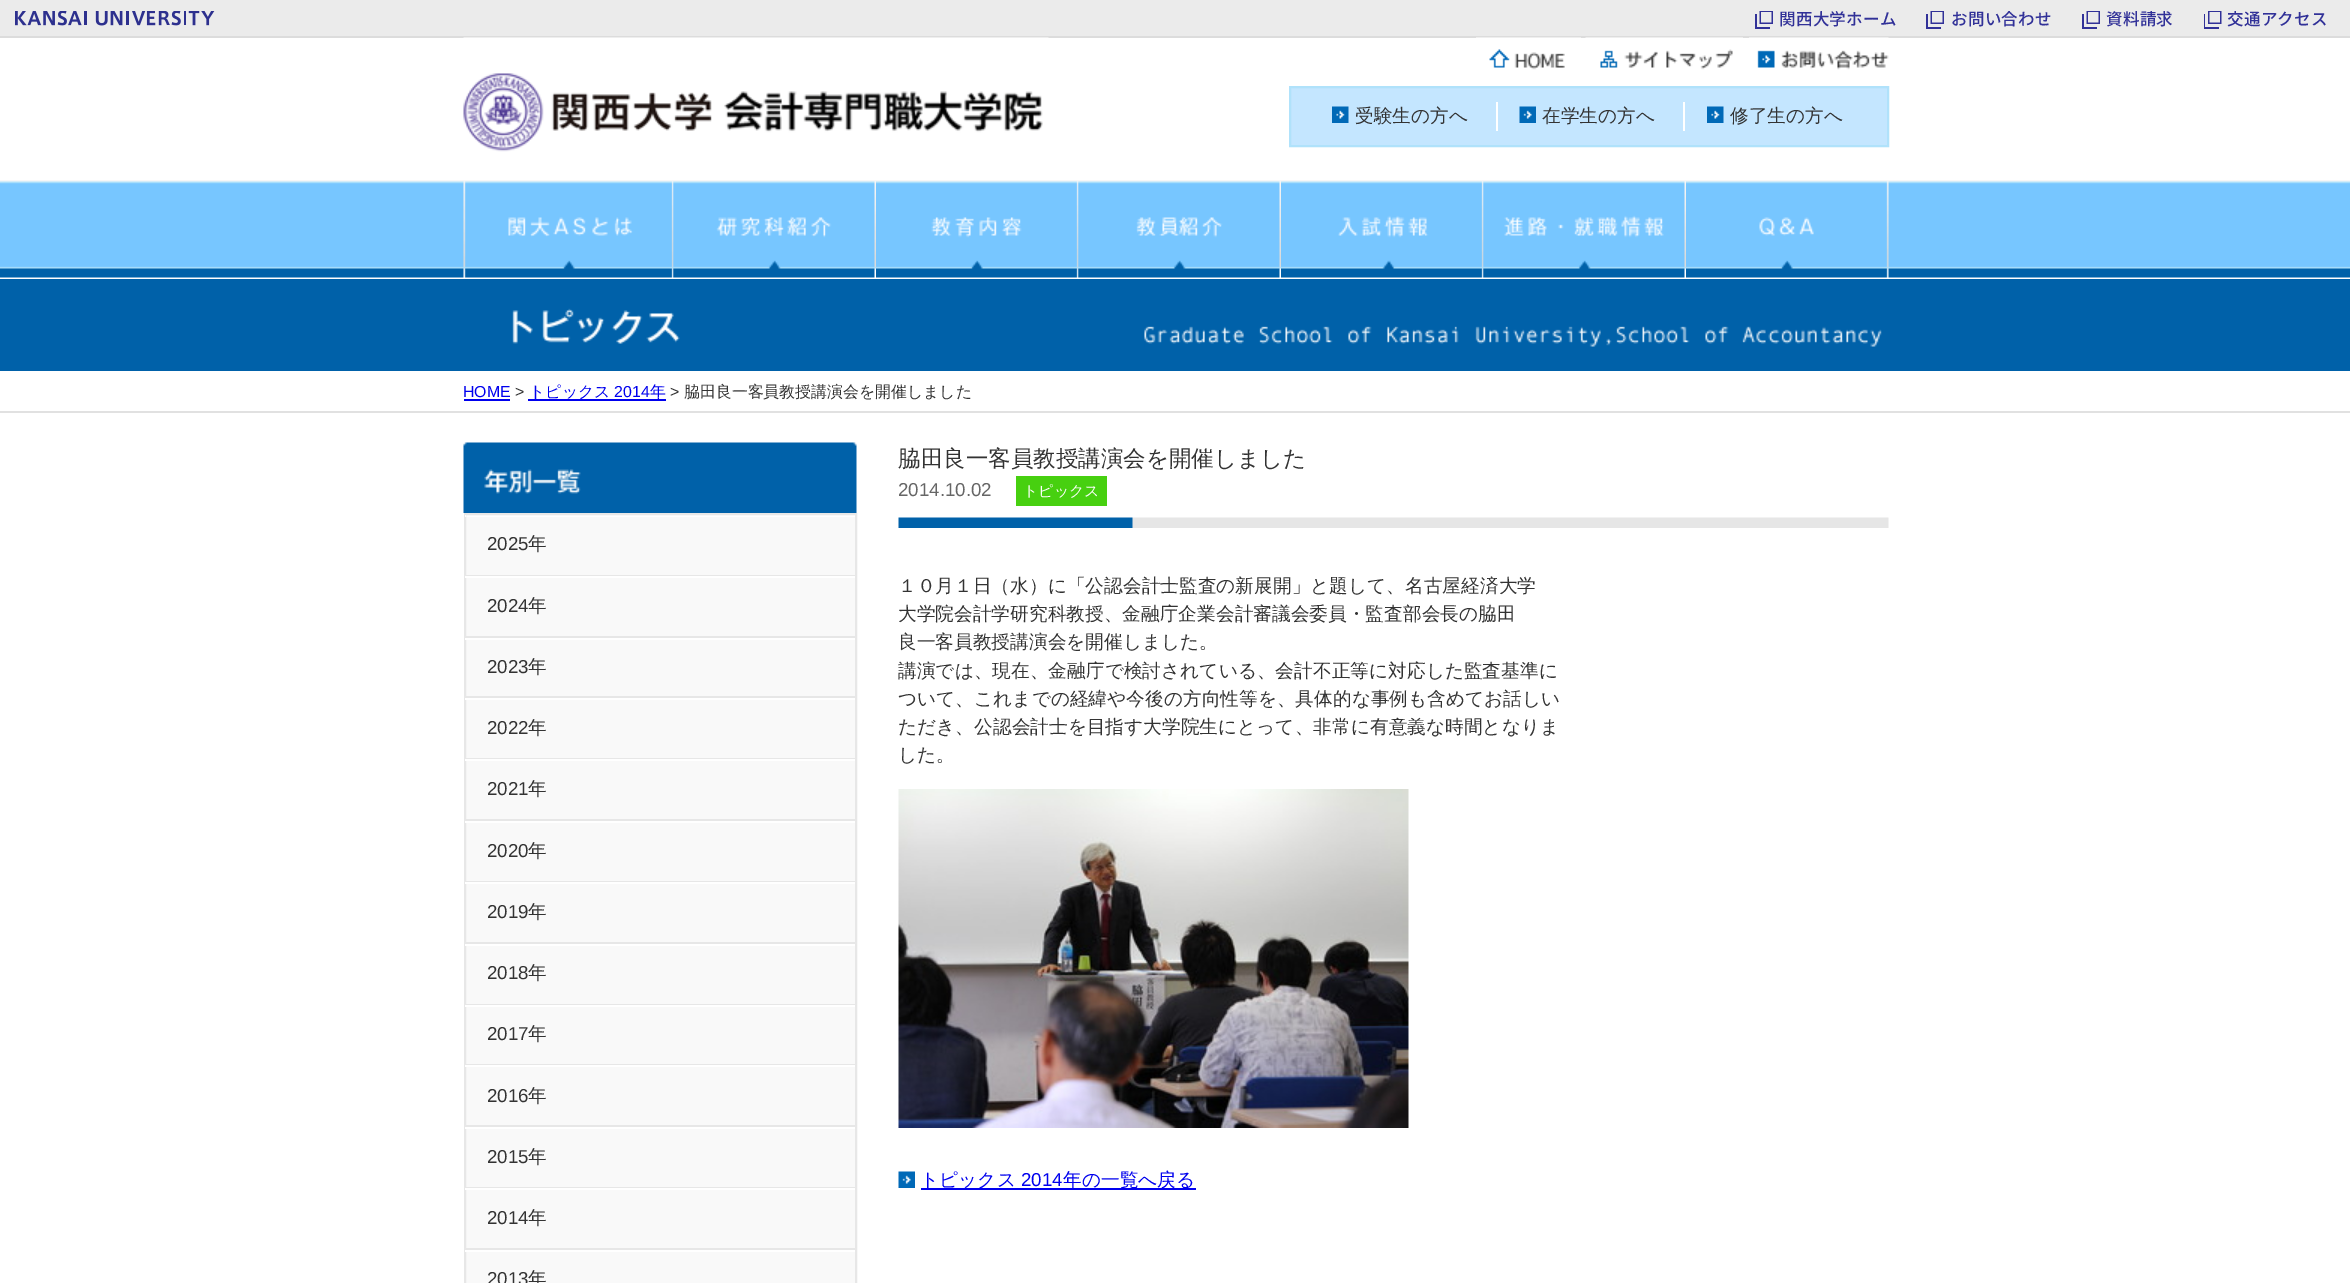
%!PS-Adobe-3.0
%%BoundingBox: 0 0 2350 1283
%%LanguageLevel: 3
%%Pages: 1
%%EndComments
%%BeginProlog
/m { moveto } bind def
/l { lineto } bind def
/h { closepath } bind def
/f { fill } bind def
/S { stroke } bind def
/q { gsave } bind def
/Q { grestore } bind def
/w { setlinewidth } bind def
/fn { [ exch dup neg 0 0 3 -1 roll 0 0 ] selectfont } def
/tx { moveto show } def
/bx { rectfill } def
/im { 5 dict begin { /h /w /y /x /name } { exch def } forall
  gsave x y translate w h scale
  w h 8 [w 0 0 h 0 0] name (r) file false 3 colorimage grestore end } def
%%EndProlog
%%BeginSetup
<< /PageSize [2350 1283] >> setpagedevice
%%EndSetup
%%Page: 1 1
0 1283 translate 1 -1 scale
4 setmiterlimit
1 setgray
0 0 2350 1283 bx
0.922 setgray
0 0 2350 36 bx
0.863 setgray
0 36 2350 2 bx
(image0.raw) 15 11 200 15 im
(image1.raw) 1755 11 18 18 im
/NotoSansJP-Thin 16.5 fn
0.192 0.192 0.596 setrgbcolor
1779 25 m 0.25 0 (関西大学ホーム) ashow
(image1.raw) 1926 11 18 18 im
1951 25 m 0.25 0 (お問い合わせ) ashow
(image1.raw) 2082 11 18 18 im
2106 25 m 0.25 0 (資料請求) ashow
(image2.raw) 2204 11 18 18 im
2227 25 m 0.25 0 (交通アクセス) ashow
(image3.raw) 0 180 2350 98 im
(image4.raw) 463 37 586 115 im
(image5.raw) 1476 37 105 33 im
(image6.raw) 1585 37 158 33 im
(image7.raw) 1749 37 140 33 im
0.769 0.902 1 setrgbcolor
1290 87 m 1888 87 l 1888 146 l 1290 146 l h q f Q
0.69 0.886 0.984 setrgbcolor
2 w
S
(image8.raw) 1332 106 17 17 im
/WenQuanYiZenHei-Medium 18.7 fn
0.2 setgray
(受験生の方へ) 1355 122 tx
1 setgray
1496 102 2 29 bx
(image9.raw) 1519 106 17 17 im
0.2 setgray
(在学生の方へ) 1542 122 tx
1 setgray
1683 102 2 29 bx
(image10.raw) 1707 106 17 17 im
0.2 setgray
(修了生の方へ) 1730 122 tx
(image11.raw) 463 181 211 97 im
(image12.raw) 673 181 203 97 im
(image13.raw) 931 181 148 97 im
(image14.raw) 1078 181 203 97 im
(image15.raw) 1338 181 146 97 im
(image16.raw) 1483 181 203 97 im
(image17.raw) 1759 181 130 97 im
0 0.38 0.663 setrgbcolor
0 279 2350 92 bx
(image18.raw) 1144 326 738 21 im
(image19.raw) 512 308 168 36 im
0.882 setgray
0 411 2350 2 bx
/LiberationSans-Regular 15.9 fn
0 0 0.933 setrgbcolor
(HOME) 463 397 tx
464 399 46 2 bx
0.2 setgray
(>) 515 397 tx
0 0 0.933 setrgbcolor
528 399 138 2 bx
/WenQuanYiZenHei-Medium 15.9 fn
(トピックス) 529 397 tx
/LiberationSans-Regular 15.9 fn
(2014) 614 397 tx
/WenQuanYiZenHei-Medium 15.9 fn
(年) 650 397 tx
/LiberationSans-Regular 15.9 fn
0.2 setgray
(>) 670 397 tx
/WenQuanYiZenHei-Medium 15.9 fn
(脇田良一客員教授講演会を開催しました) 684 397 tx
(image20.raw) 463 442 394 71 im
0.976 setgray
466 517 389 766 bx
0.906 setgray
465 514 391 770 rectstroke
1 setgray
465 515 1 2 bx
0.906 setgray
465 575 390 1 bx
/LiberationSans-Regular 18.7 fn
0.2 setgray
(2025) 487 550 tx
/WenQuanYiZenHei-Medium 18.7 fn
(年) 528 550 tx
1 setgray
465 576 390 2 bx
0.906 setgray
465 636 390 2 bx
/LiberationSans-Regular 18.7 fn
0.2 setgray
(2024) 487 612 tx
/WenQuanYiZenHei-Medium 18.7 fn
(年) 528 612 tx
1 setgray
465 638 390 2 bx
0.906 setgray
465 696 390 2 bx
/LiberationSans-Regular 18.7 fn
0.2 setgray
(2023) 487 673 tx
/WenQuanYiZenHei-Medium 18.7 fn
(年) 528 673 tx
1 setgray
465 698 390 2 bx
0.906 setgray
465 758 390 1 bx
/LiberationSans-Regular 18.7 fn
0.2 setgray
(2022) 487 734 tx
/WenQuanYiZenHei-Medium 18.7 fn
(年) 528 734 tx
1 setgray
465 759 390 2 bx
0.906 setgray
465 819 390 2 bx
/LiberationSans-Regular 18.7 fn
0.2 setgray
(2021) 487 795 tx
/WenQuanYiZenHei-Medium 18.7 fn
(年) 528 795 tx
1 setgray
465 821 390 2 bx
0.906 setgray
465 881 390 1 bx
/LiberationSans-Regular 18.7 fn
0.2 setgray
(2020) 487 857 tx
/WenQuanYiZenHei-Medium 18.7 fn
(年) 528 857 tx
1 setgray
465 882 390 2 bx
0.906 setgray
465 942 390 2 bx
/LiberationSans-Regular 18.7 fn
0.2 setgray
(2019) 487 918 tx
/WenQuanYiZenHei-Medium 18.7 fn
(年) 528 918 tx
1 setgray
465 944 390 2 bx
0.906 setgray
465 1004 390 1 bx
/LiberationSans-Regular 18.7 fn
0.2 setgray
(2018) 487 979 tx
/WenQuanYiZenHei-Medium 18.7 fn
(年) 528 979 tx
1 setgray
465 1005 390 2 bx
0.906 setgray
465 1064 390 1 bx
/LiberationSans-Regular 18.7 fn
0.2 setgray
(2017) 487 1040 tx
/WenQuanYiZenHei-Medium 18.7 fn
(年) 528 1040 tx
1 setgray
465 1065 390 2 bx
0.906 setgray
465 1125 390 2 bx
/LiberationSans-Regular 18.7 fn
0.2 setgray
(2016) 487 1102 tx
/WenQuanYiZenHei-Medium 18.7 fn
(年) 528 1102 tx
1 setgray
465 1127 390 2 bx
0.906 setgray
465 1187 390 1 bx
/LiberationSans-Regular 18.7 fn
0.2 setgray
(2015) 487 1163 tx
/WenQuanYiZenHei-Medium 18.7 fn
(年) 528 1163 tx
1 setgray
465 1188 390 2 bx
0.906 setgray
465 1248 390 2 bx
/LiberationSans-Regular 18.7 fn
0.2 setgray
(2014) 487 1224 tx
/WenQuanYiZenHei-Medium 18.7 fn
(年) 528 1224 tx
1 setgray
465 1250 390 2 bx
/LiberationSans-Regular 18.7 fn
0.2 setgray
(2013) 487 1285 tx
/WenQuanYiZenHei-Medium 18.7 fn
(年) 528 1285 tx
(image21.raw) 898 517 991 11 im
/WenQuanYiZenHei-Medium 22.5 fn
(脇田良一客員教授講演会を開催しました) 898 466 tx
/LiberationSans-Regular 18.7 fn
0.4 setgray
(2014.10.02) 898 496 tx
0.278 0.816 0.063 setrgbcolor
1016 476 91 30 bx
/WenQuanYiZenHei-Medium 15 fn
1 setgray
(トピックス) 1023 496 tx
/WenQuanYiZenHei-Medium 18.7 fn
0.2 setgray
(１０月１日（水）に「公認会計士監査の新展開」と題して、名古屋経済大学) 898 592 tx
(大学院会計学研究科教授、金融庁企業会計審議会委員・監査部会長の脇田) 898 620 tx
(良一客員教授講演会を開催しました。) 898 648 tx
(講演では、現在、金融庁で検討されている、会計不正等に対応した監査基準に) 898 677 tx
(ついて、これまでの経緯や今後の方向性等を、具体的な事例も含めてお話しい) 898 705 tx
(ただき、公認会計士を目指す大学院生にとって、非常に有意義な時間となりま) 898 733 tx
(した。) 898 761 tx
(image22.raw) 898 789 511 339 im
(image23.raw) 898 1171 17 17 im
0 0 0.933 setrgbcolor
921 1188 275 2 bx
(トピックス) 920 1186 tx
/LiberationSans-Regular 18.7 fn
(2014) 1021 1186 tx
/WenQuanYiZenHei-Medium 18.7 fn
(年の一覧へ戻る) 1063 1186 tx
showpage
%%EOF
